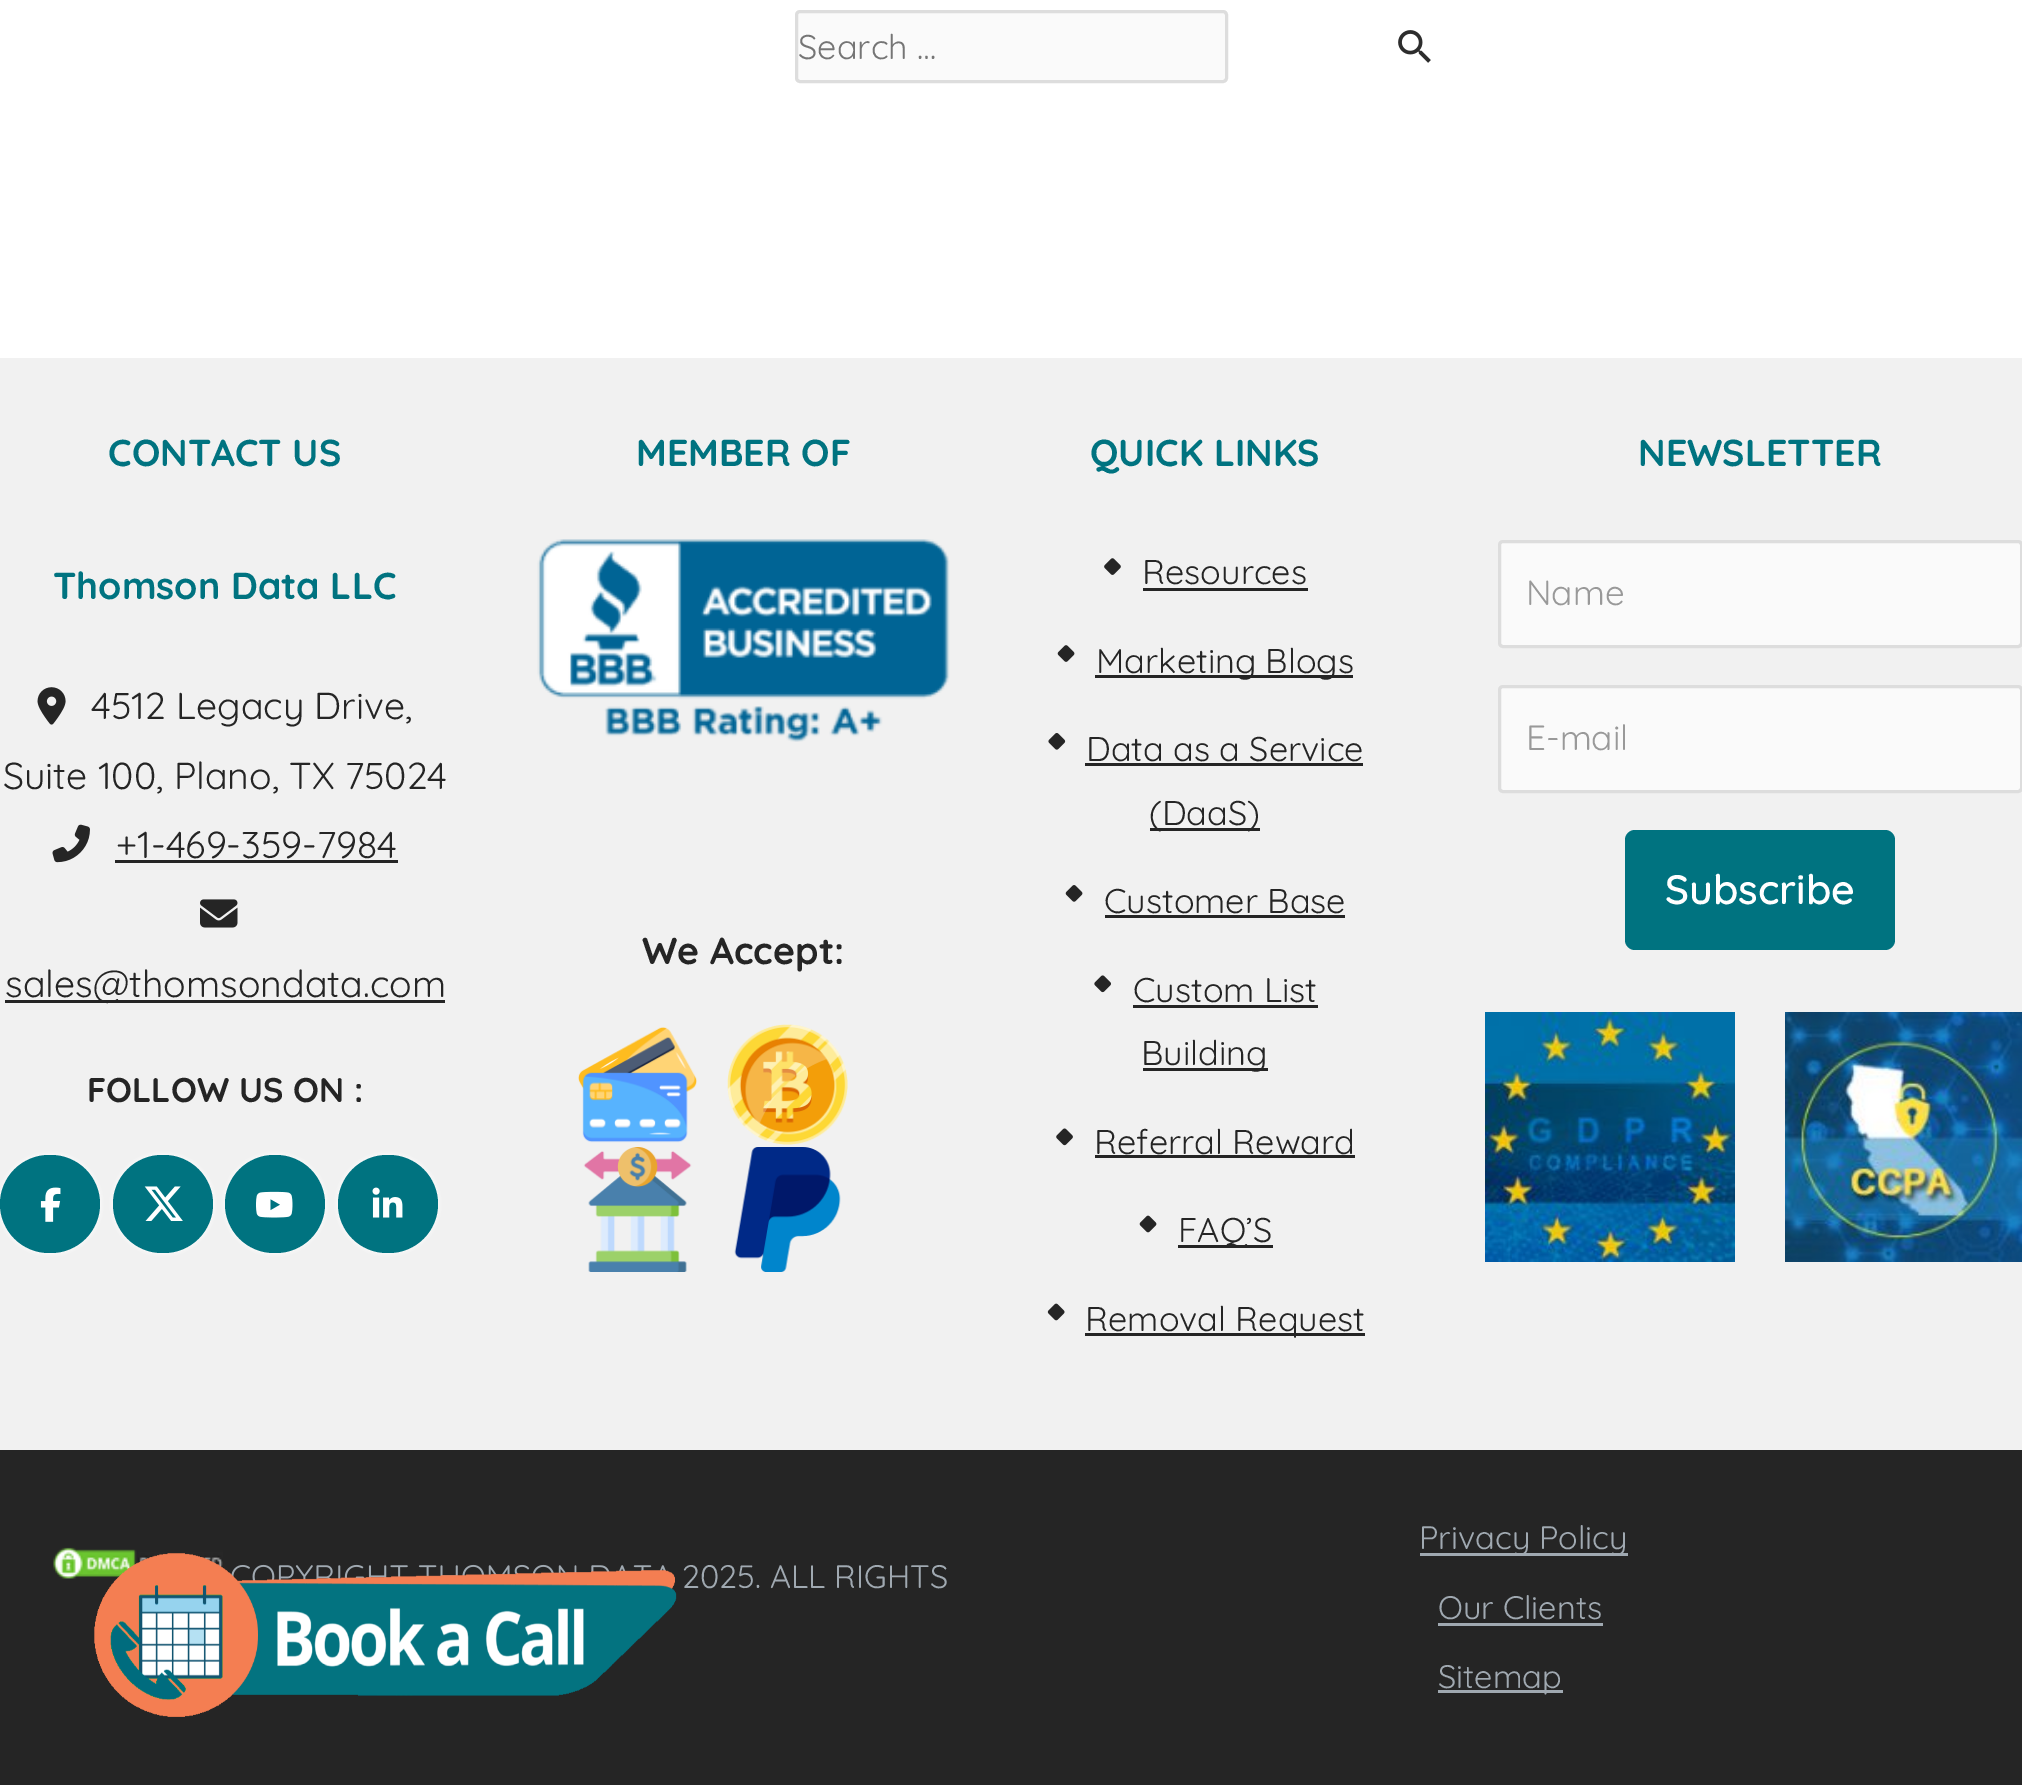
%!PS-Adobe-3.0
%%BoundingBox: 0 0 2022 1785
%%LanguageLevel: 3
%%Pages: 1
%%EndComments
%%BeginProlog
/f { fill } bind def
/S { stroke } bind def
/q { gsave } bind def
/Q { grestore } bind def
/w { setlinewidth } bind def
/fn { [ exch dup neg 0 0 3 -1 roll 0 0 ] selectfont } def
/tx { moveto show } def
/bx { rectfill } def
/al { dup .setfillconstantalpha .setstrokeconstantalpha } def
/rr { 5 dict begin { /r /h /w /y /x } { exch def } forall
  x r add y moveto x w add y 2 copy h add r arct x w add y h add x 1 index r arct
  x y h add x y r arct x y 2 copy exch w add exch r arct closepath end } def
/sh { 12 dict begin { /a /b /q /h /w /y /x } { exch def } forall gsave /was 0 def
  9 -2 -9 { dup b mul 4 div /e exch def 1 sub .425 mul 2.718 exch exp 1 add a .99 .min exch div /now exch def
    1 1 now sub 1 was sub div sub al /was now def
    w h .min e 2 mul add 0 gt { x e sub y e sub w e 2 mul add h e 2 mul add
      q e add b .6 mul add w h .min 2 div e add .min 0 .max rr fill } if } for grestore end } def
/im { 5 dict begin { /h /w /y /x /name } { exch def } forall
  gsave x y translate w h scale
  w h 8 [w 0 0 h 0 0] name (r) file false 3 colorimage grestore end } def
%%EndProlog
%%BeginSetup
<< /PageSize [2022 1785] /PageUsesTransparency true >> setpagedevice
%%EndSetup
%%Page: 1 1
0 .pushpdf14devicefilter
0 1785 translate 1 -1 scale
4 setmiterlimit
1 setgray
0 0 2022 1785 bx
0.98 setgray
796.5 11.5 430 70 3.5 rr q f Q
0.867 setgray
3 w
S
/Quicksand-Regular 34.25 fn
0.459 setgray
(Search …) 798 59 tx
(image0.raw) 1398 30 33 33 im
0.945 setgray
0 358 2022 1092 bx
/Quicksand-Bold 37.5 fn
0 0.451 0.502 setrgbcolor
(CONTACT US) 108 466 tx
(Thomson Data LLC) 53 599 tx
(image1.raw) 37 687 29 38 im
/Quicksand-Regular 37.5 fn
0.145 setgray
(4512 Legacy Drive,) 91 719 tx
(Suite 100, Plano, TX 75024) 3 789 tx
(image2.raw) 52 824 38 39 im
(+1-469-359-7984) 116 858 tx
115 860 283 3 bx
(image3.raw) 200 899 38 29 im
5 1000 440 3 bx
(sales@thomsondata.com) 5 997 tx
/Quicksand-Bold 34.25 fn
(FOLLOW US ON :) 87 1102 tx
1 setgray
0 1155 100 98 49 2.5 1 sh
0 0.451 0.502 setrgbcolor
0 1155 100 98 49 rr f
(image4.raw) 40 1187 21 35 im
1 setgray
113 1155 100 98 49 2.5 1 sh
0 0.451 0.502 setrgbcolor
113 1155 100 98 49 rr f
(image5.raw) 144 1186 39 35 im
1 setgray
225 1155 100 98 49 2.5 1 sh
0 0.451 0.502 setrgbcolor
225 1155 100 98 49 rr f
(image6.raw) 256 1191 37 27 im
1 setgray
338 1155 100 98 49 2.5 1 sh
0 0.451 0.502 setrgbcolor
338 1155 100 98 49 rr f
(image7.raw) 372 1187 31 31 im
/Quicksand-Bold 37.5 fn
(MEMBER OF) 636 466 tx
(image8.raw) 537 539 413 203 im
0.145 setgray
(We Accept:) 642 964 tx
(image9.raw) 578 1027 119 116 im
(image10.raw) 727 1024 121 121 im
(image11.raw) 583 1147 109 125 im
(image12.raw) 734 1147 107 125 im
0 0.451 0.502 setrgbcolor
(QUICK LINKS) 1090 466 tx
(image13.raw) 1104 558 17 17 im
/Quicksand-Regular 34.25 fn
0.145 setgray
(Resources) 1142 584 tx
1143 588 165 3 bx
(image14.raw) 1057 645 18 17 im
1095 675 258 3 bx
(Marketing Blogs) 1096 673 tx
(image15.raw) 1048 733 18 17 im
(Data as a Service) 1086 761 tx
1085 763 278 3 bx
1150 828 110 3 bx
(\(DaaS\)) 1149 825 tx
(image16.raw) 1065 885 18 17 im
(Customer Base) 1104 913 tx
1105 915 240 3 bx
(image17.raw) 1094 975 17 18 im
(Custom List) 1133 1002 tx
1133 1005 185 3 bx
1143 1068 125 3 bx
(Building) 1141 1065 tx
(image18.raw) 1056 1128 17 18 im
(Referral Reward) 1094 1154 tx
1095 1155 260 3 bx
(image19.raw) 1139 1215 18 18 im
1178 1245 95 3 bx
(FAQ’S) 1178 1242 tx
(image20.raw) 1047 1303 18 18 im
1085 1333 280 3 bx
(Removal Request) 1085 1331 tx
/Quicksand-Bold 37.5 fn
0 0.451 0.502 setrgbcolor
(NEWSLETTER) 1638 466 tx
0.98 setgray
1499.5 541.5 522 105 3.5 rr q f Q
0.867 setgray
S
/Quicksand-Regular 35 fn
0.6 setgray
(Name) 1526 605 tx
0.98 setgray
1499.5 686.5 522 105 3.5 rr q f Q
0.867 setgray
S
0.6 setgray
(E-mail) 1526 750 tx
0 0.451 0.502 setrgbcolor
1625 830 270 120 10 rr f
/Quicksand-SemiBold 41 fn
1 setgray
(Subscribe) 1665 904 tx
(image21.raw) 1485 1012 250 250 im
(image22.raw) 1785 1012 237 250 im
0.145 setgray
0 1450 2022 335 bx
(image23.raw) 53 1547 170 32 im
/Quicksand-Regular 32.5 fn
0.627 0.663 0.694 setrgbcolor
(2025. ALL RIGHTS) 682 1588 tx
1420 1553 208 3 bx
(Privacy Policy) 1419 1549 tx
(Our Clients) 1438 1619 tx
1438 1623 165 3 bx
1438 1690 125 3 bx
(Sitemap) 1438 1688 tx
(image24.raw) 94 1553 583 164 im
.poppdf14devicefilter showpage
%%EOF
